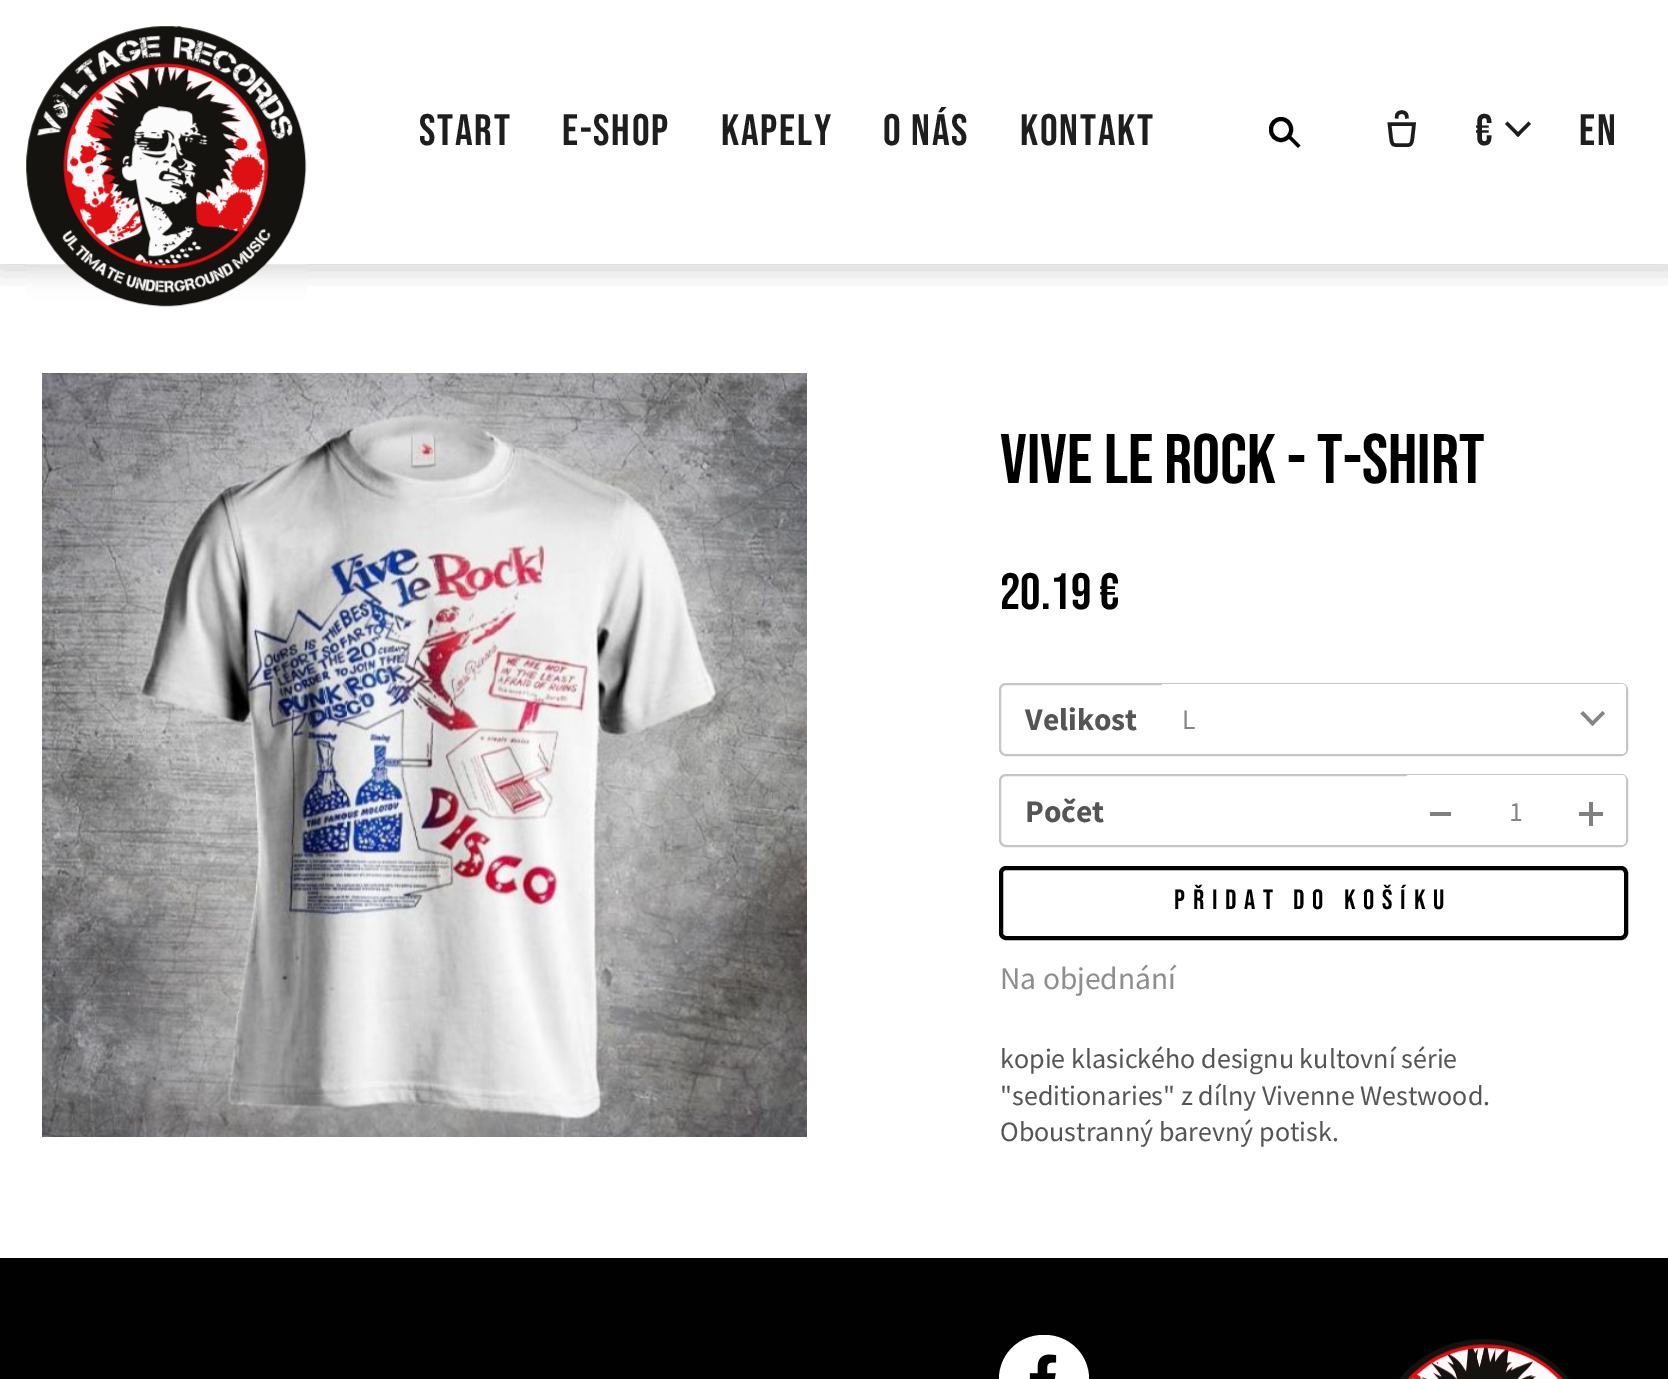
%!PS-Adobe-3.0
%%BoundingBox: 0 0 1668 1379
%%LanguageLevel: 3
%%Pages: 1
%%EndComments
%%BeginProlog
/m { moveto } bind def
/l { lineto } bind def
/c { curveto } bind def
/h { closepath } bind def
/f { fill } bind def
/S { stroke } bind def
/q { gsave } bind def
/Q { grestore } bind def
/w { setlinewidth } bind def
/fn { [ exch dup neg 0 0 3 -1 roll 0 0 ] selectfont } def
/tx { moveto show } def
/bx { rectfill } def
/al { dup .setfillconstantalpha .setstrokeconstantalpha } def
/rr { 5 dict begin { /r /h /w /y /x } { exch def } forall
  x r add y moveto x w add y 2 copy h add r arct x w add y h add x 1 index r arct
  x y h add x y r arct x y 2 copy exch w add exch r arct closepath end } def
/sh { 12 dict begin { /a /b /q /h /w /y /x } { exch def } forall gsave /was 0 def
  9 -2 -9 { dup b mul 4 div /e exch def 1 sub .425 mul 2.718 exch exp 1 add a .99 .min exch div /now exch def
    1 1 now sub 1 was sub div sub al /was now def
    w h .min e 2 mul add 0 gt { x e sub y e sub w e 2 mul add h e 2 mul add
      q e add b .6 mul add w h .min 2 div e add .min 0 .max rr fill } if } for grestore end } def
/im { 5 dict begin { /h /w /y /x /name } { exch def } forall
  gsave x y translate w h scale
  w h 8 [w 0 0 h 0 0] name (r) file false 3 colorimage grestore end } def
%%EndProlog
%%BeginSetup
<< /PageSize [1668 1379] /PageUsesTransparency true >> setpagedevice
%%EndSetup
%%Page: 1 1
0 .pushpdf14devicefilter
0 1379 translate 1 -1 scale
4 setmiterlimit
1 setgray
0 0 1668 1379 bx
q
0 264 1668 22 rectclip
0 setgray
0 4 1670 264 0 14 0.2 sh
Q
(image0.raw) 26 26 281 281 im
/BebasNeue-Regular 44 fn
0.118 setgray
419 145 m 1.75 0 (START) ashow
562 145 m 1.75 0 (E-SHOP) ashow
721 145 m 1.75 0 (KAPELY) ashow
883 145 m 1.75 0 (O NÁS) ashow
1020 145 m 1.75 0 (KONTAKT) ashow
0 setgray
4 w
1271 119 20 21 10 rr S
1289 134 m 1300.5 145.5 l 1298 148 l 1286.5 136.5 l h f
0.11 setgray
3.5 w
1414 124 m 1412.5 137.5 l 1411.5 146.5 1410 145 1402 145 c 1393.5 145 1392 146.5 1391 137.5 c 1389.5 124 l h 1407 118.5 m 1406.5 115 l 1405 111 1398.5 111 1397 115 c 1396.5 118.5 l S
0.118 setgray
1475 145 m 1.75 0 (€) ashow
1528.5 121.5 m 1531 124 l 1518 137 l 1515.5 134.5 l h f
1507.5 121.5 m 1520.5 134.5 l 1518 137 l 1505 124 l h f
1579 145 m 1.75 0 (en) ashow
(image1.raw) 42 373 765 764 im
/BebasNeue-Regular 70 fn
0 setgray
(Vive Le Rock - T-SHIRT) 1000 483 tx
/BebasNeue-Regular 51 fn
(20.19 €) 1000 609 tx
0.773 setgray
2 w
1000 684 627 71 6 rr S
/SourceSansPro-Bold 31.5 fn
0.333 setgray
(Velikost) 1025 730 tx
1 setgray
1160 684 466 70 4 rr f
/SourceSansPro-Regular 28 fn
0.522 setgray
(L) 1182 729 tx
1602.5 711 m 1605 713.5 l 1592.5 726 l 1590 723.5 l h f
1583 711 m 1595 723.5 l 1592.5 726 l 1580.5 713.5 l h f
0.773 setgray
1000 775 627 71 6 rr S
/SourceSansPro-Bold 31.5 fn
0.333 setgray
(Počet) 1025 822 tx
1 setgray
1405 775 221 70 7 rr f
1409 775 m 1475 775 l 1475 845 l 1409 845 l 1407 845 1405 843 1405 841 c 1405 779 l 1405 777 1407 775 1409 775 c h f
0.502 setgray
1430 812 21 4 bx
/SourceSansPro-Regular 28 fn
0.522 setgray
(1) 1509 821 tx
1 setgray
1556 775 m 1622 775 l 1624 775 1626 777 1626 779 c 1626 841 l 1626 843 1624 845 1622 845 c 1556 845 l h f
0.502 setgray
1579 812 24 4 bx
1589 802 4 24 bx
0.004 setgray
4 w
1001 868 625 70 5 rr S
/BebasNeue-Regular 28 fn
0 setgray
1174 909 m 7.8 0 (PŘIDAT DO KOŠÍKU) ashow
/SourceSansPro-Regular 31.5 fn
0.557 setgray
(Na objednání) 1000 989 tx
/SourceSansPro-Regular 28 fn
0.333 setgray
(kopie klasického designu kultovní série) 1000 1068 tx
("seditionaries" z dílny Vivenne Westwood.) 1000 1105 tx
(Oboustranný barevný potisk.) 1000 1141 tx
0.004 setgray
0 1258 1668 121 bx
1 setgray
999 1335 90 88 44 rr f
(image2.raw) 1029 1354 28 25 im
(image3.raw) 1399 1339 170 40 im
.poppdf14devicefilter showpage
%%EOF
